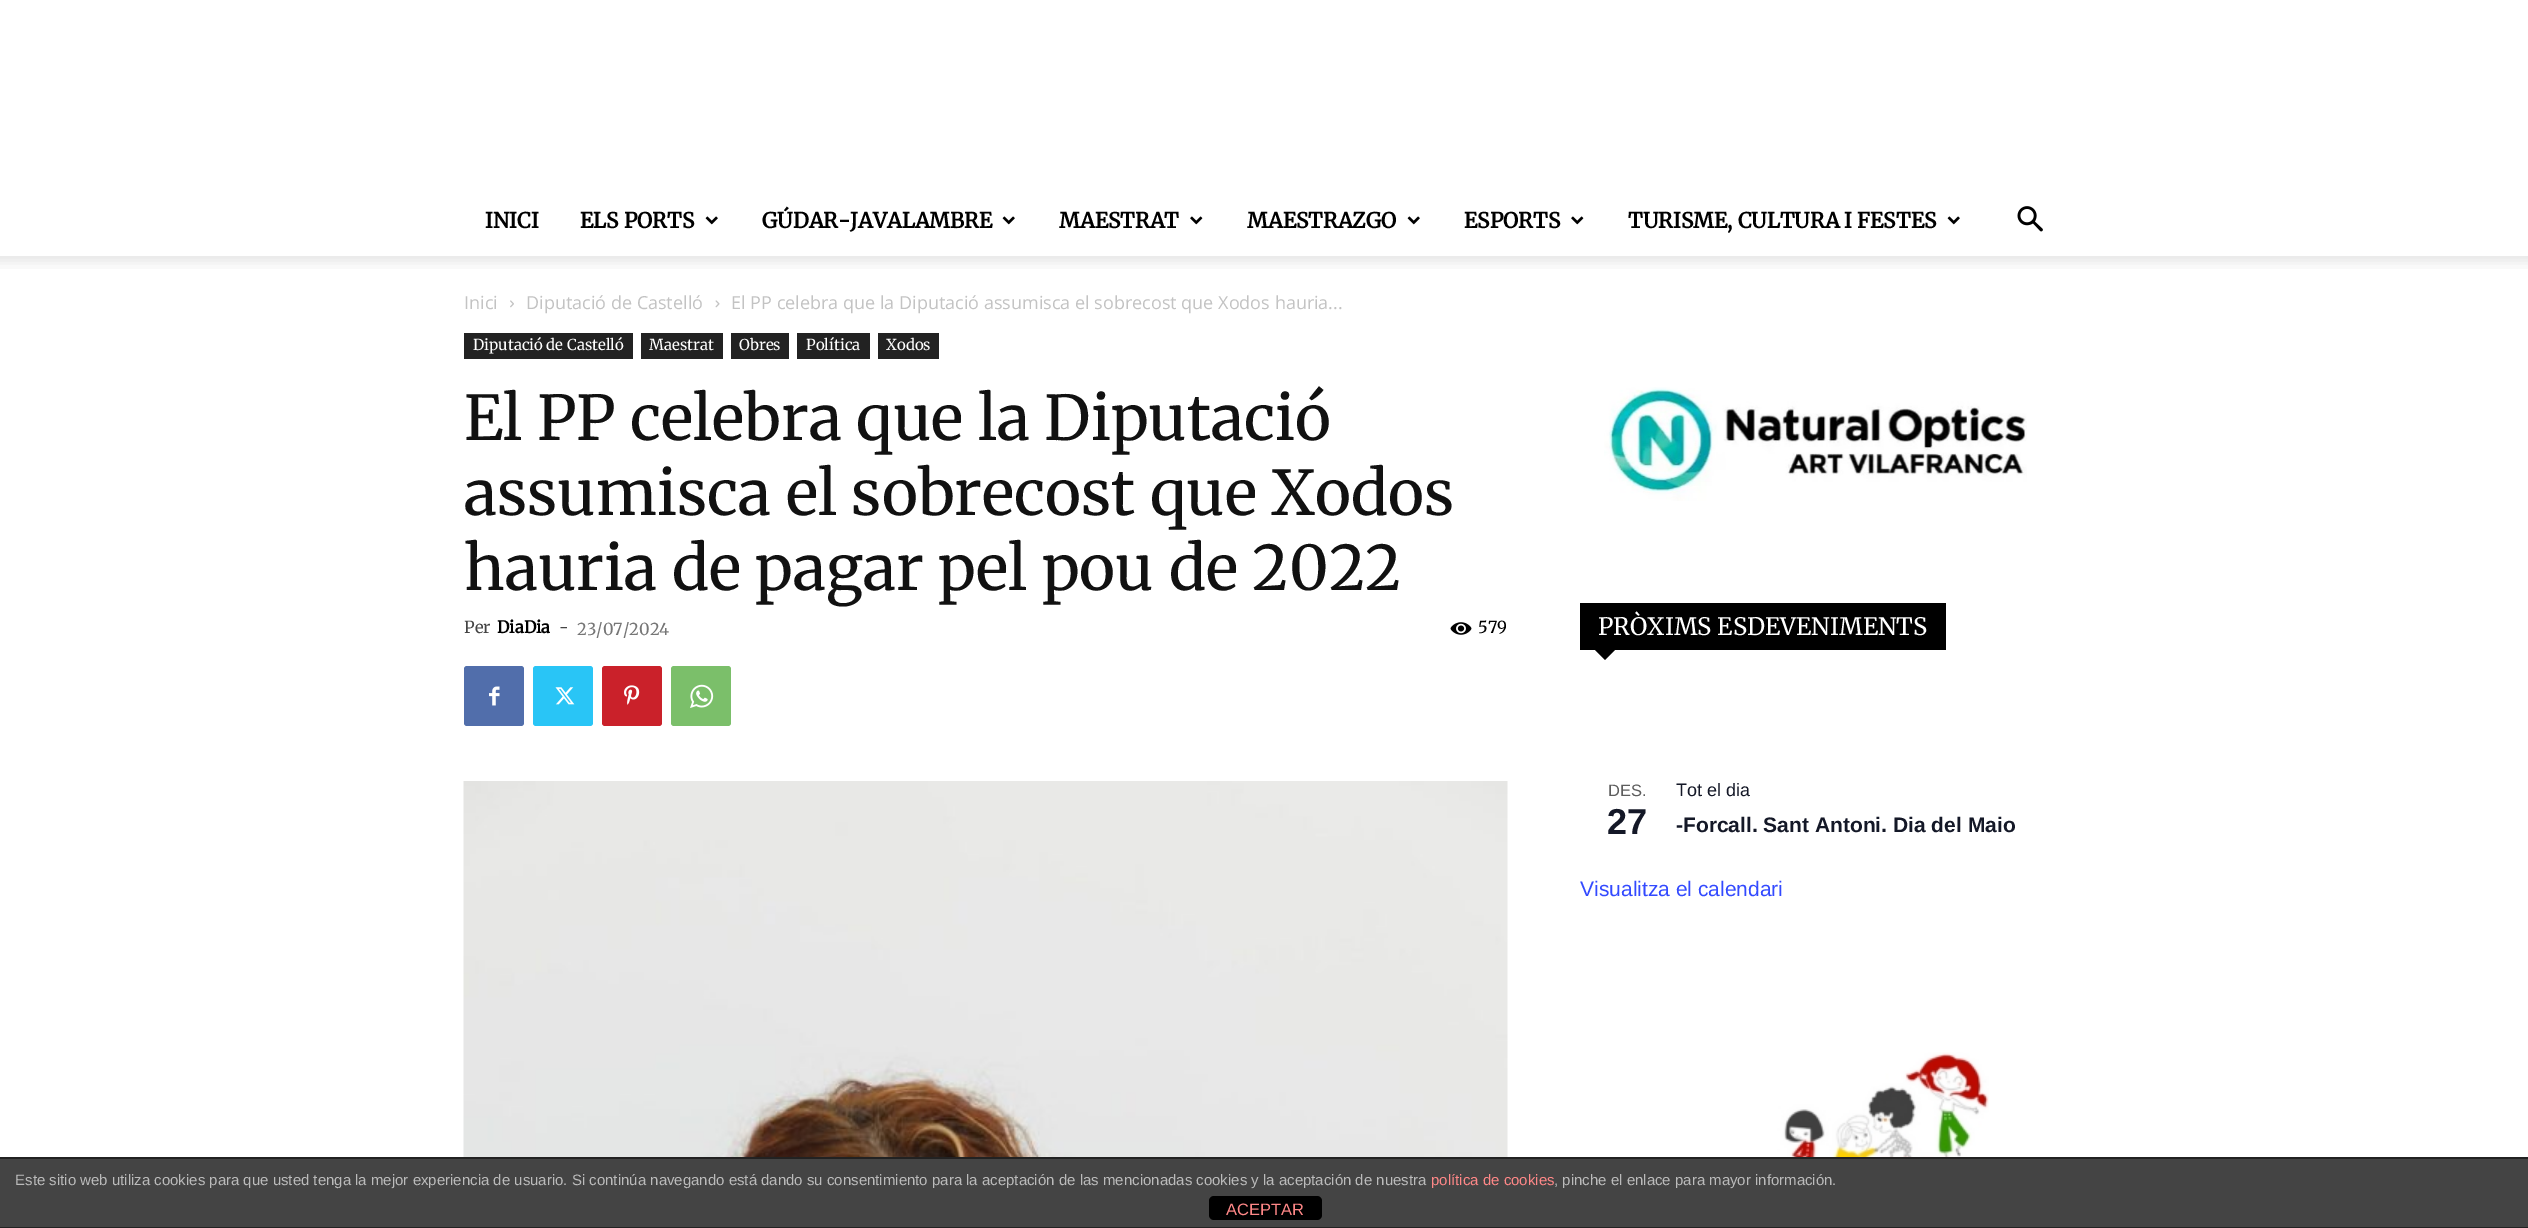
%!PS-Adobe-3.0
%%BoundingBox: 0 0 2528 1228
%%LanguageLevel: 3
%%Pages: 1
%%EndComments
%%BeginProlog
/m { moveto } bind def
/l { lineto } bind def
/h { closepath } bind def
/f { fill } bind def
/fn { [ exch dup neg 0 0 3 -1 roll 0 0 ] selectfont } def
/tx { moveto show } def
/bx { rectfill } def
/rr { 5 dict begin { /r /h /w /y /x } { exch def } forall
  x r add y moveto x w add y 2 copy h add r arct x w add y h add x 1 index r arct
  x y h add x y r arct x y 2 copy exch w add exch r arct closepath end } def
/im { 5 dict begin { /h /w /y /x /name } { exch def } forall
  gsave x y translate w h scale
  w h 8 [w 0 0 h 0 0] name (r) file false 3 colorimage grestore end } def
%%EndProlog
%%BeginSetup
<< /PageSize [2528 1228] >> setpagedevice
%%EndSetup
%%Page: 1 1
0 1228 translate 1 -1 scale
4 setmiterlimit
1 setgray
0 0 2528 1228 bx
/Merriweather-Bold 21 fn
0 setgray
(INICI) 485 228 tx
(ELS PORTS) 580 228 tx
(image0.raw) 705 216 13 9 im
(GÚDAR-JAVALAMBRE) 762 228 tx
(image0.raw) 1002 216 13 9 im
(MAESTRAT) 1059 228 tx
(image1.raw) 1190 216 13 9 im
(MAESTRAZGO) 1247 228 tx
(image0.raw) 1407 216 13 9 im
(ESPORTS) 1464 228 tx
(image1.raw) 1571 216 13 9 im
(TURISME, CULTURA I FESTES) 1628 228 tx
(image0.raw) 1947 216 13 9 im
(image2.raw) 2017 206 26 26 im
(image3.raw) 0 256 2528 13 im
/OpenSans-Regular 18 fn
0.765 setgray
(Inici) 464 309 tx
(image4.raw) 510 300 4 8 im
(Diputació de Castelló) 526 309 tx
(image5.raw) 715 300 5 8 im
(El PP celebra que la Diputació assumisca el sobrecost que Xodos hauria...) 731 309 tx
0.133 setgray
464 333 169 26 bx
/Merriweather-Light 15 fn
1 setgray
(Diputació de Castelló) 473 350 tx
0.133 setgray
641 333 82 26 bx
1 setgray
(Maestrat) 649 350 tx
0.133 setgray
731 333 58 26 bx
1 setgray
(Obres) 739 350 tx
0.133 setgray
797 333 73 26 bx
1 setgray
(Política) 806 350 tx
0.133 setgray
878 333 61 26 bx
1 setgray
(Xodos) 886 350 tx
/Merriweather-Light 61.5 fn
0.067 setgray
(El PP celebra que la Diputació) 464 440 tx
(assumisca el sobrecost que Xodos) 464 515 tx
(hauria de pagar pel pou de 2022) 464 590 tx
/Merriweather-Light 16.5 fn
0.267 setgray
(Per) 464 633 tx
/Merriweather-Bold 16.5 fn
0 setgray
(DiaDia) 497 633 tx
/Merriweather-Light 16.5 fn
0.267 setgray
(-) 559 633 tx
0.463 setgray
(23/07/2024) 577 635 tx
(image6.raw) 1450 622 22 13 im
0 setgray
(579) 1478 633 tx
0.318 0.431 0.671 setrgbcolor
464 666 60 60 3 rr f
(image7.raw) 489 686 11 20 im
0.161 0.773 0.965 setrgbcolor
533 666 60 60 3 rr f
(image8.raw) 555 687 20 18 im
0.792 0.129 0.165 setrgbcolor
602 666 60 60 3 rr f
(image9.raw) 624 685 16 20 im
0.482 0.749 0.416 setrgbcolor
671 666 60 60 3 rr f
(image10.raw) 690 684 24 24 im
(image11.raw) 463 781 1045 376 im
(image12.raw) 1604 387 423 114 im
0 setgray
1580 603 366 47 bx
/Merriweather-Light 24 fn
1 setgray
(PRÒXIMS ESDEVENIMENTS) 1598 635 tx
0 setgray
1594.5 649.5 m 1615.5 649.5 l 1605 660 l h f
/LiberationSans-Regular 16.5 fn
0.365 setgray
(DES.) 1608 796 tx
/LiberationSans-Bold 36 fn
0.078 0.094 0.153 setrgbcolor
(27) 1607 834 tx
/LiberationSans-Regular 18 fn
(Tot el dia) 1676 796 tx
/LiberationSans-Bold 21 fn
(-Forcall. Sant Antoni. Dia del Maio) 1676 832 tx
/LiberationSans-Regular 21 fn
0.2 0.29 1 setrgbcolor
(Visualitza el calendari) 1580 896 tx
(image13.raw) 1653 1052 336 105 im
0.267 setgray
0 1159 2528 68 bx
0.133 setgray
0 1157 2528 2 bx
0 1227 2528 1 bx
/LiberationSans-Regular 15 fn
0.733 setgray
(Este sitio web utiliza cookies para que usted tenga la mejor experiencia de usuario. Si continúa navegando está dando su consentimiento para la aceptación de las mencionadas cookies y la aceptación de nuestra) 15 1185 tx
1 0.533 0.533 setrgbcolor
(política de cookies) 1431 1185 tx
0.733 setgray
(, pinche el enlace para mayor información.) 1554 1185 tx
0 setgray
1209 1196 113 24 5 rr f
/LiberationSans-Regular 16.5 fn
1 0.533 0.533 setrgbcolor
(ACEPTAR) 1226 1215 tx
showpage
%%EOF
